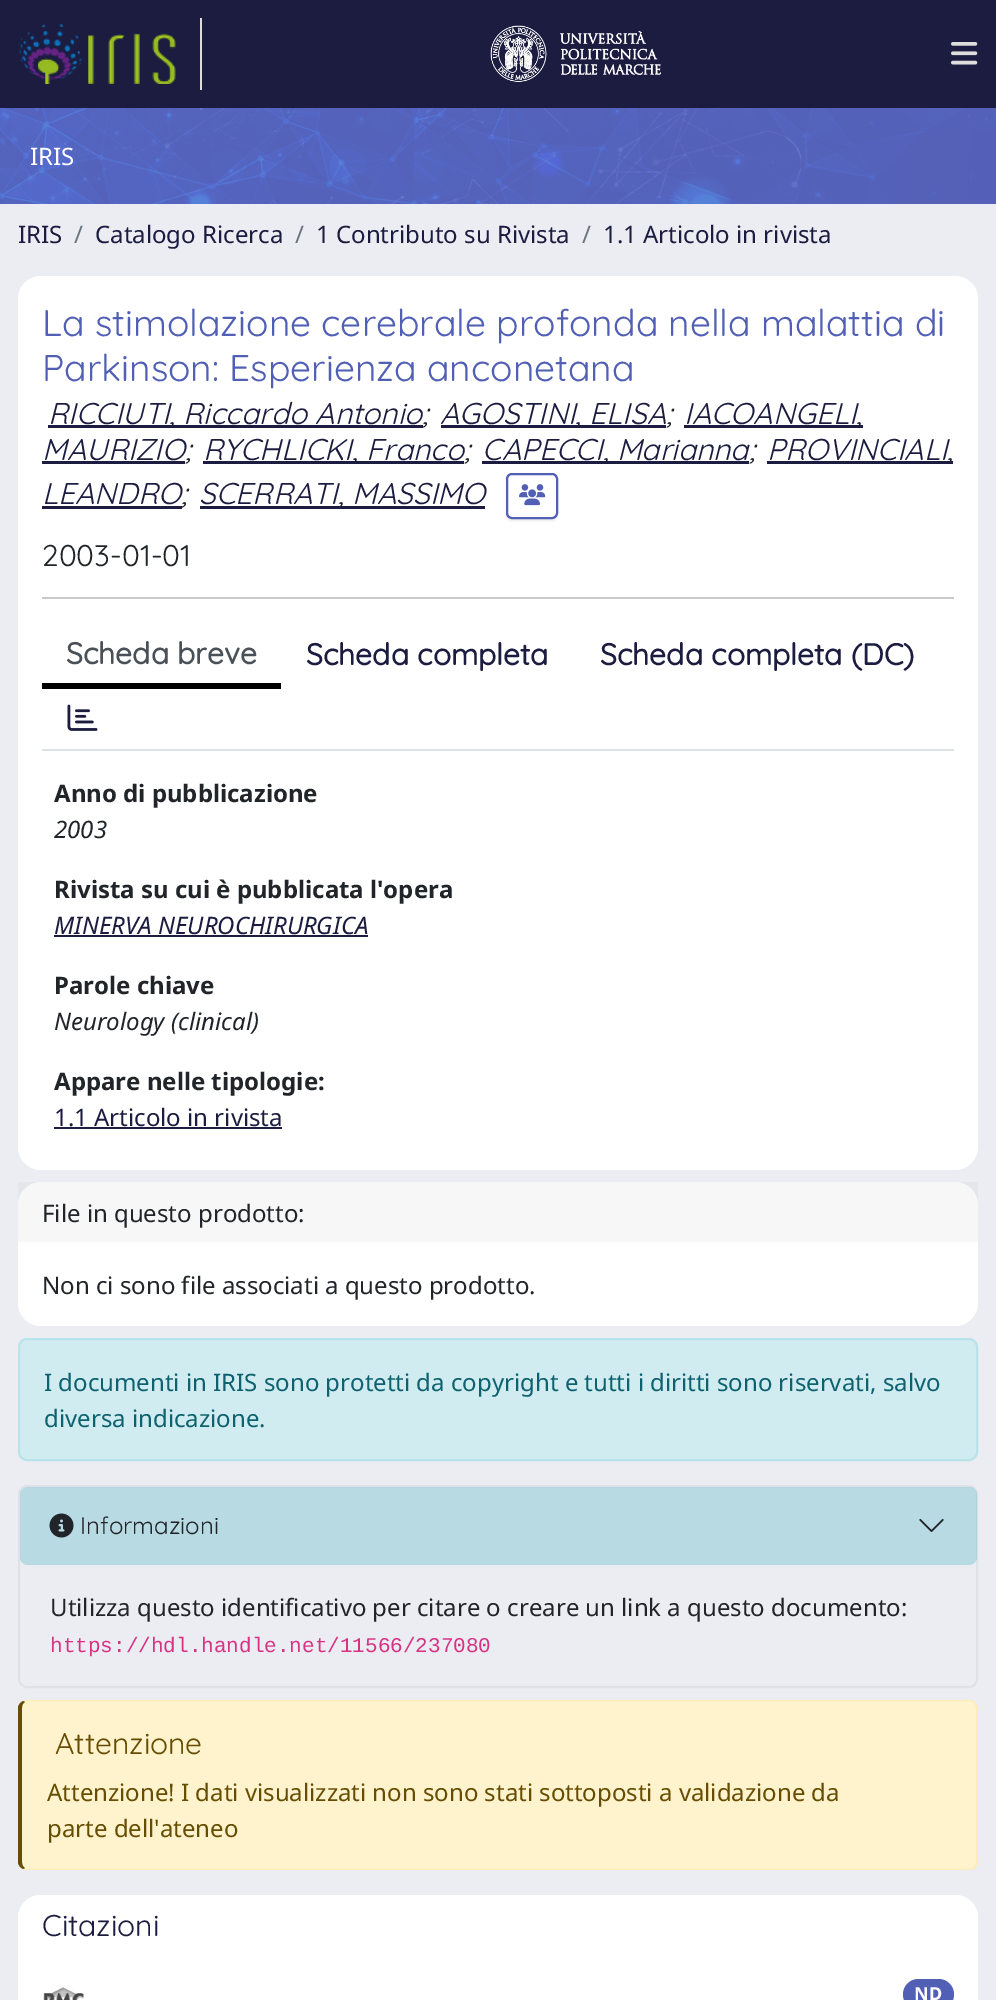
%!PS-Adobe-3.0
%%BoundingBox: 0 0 996 2000
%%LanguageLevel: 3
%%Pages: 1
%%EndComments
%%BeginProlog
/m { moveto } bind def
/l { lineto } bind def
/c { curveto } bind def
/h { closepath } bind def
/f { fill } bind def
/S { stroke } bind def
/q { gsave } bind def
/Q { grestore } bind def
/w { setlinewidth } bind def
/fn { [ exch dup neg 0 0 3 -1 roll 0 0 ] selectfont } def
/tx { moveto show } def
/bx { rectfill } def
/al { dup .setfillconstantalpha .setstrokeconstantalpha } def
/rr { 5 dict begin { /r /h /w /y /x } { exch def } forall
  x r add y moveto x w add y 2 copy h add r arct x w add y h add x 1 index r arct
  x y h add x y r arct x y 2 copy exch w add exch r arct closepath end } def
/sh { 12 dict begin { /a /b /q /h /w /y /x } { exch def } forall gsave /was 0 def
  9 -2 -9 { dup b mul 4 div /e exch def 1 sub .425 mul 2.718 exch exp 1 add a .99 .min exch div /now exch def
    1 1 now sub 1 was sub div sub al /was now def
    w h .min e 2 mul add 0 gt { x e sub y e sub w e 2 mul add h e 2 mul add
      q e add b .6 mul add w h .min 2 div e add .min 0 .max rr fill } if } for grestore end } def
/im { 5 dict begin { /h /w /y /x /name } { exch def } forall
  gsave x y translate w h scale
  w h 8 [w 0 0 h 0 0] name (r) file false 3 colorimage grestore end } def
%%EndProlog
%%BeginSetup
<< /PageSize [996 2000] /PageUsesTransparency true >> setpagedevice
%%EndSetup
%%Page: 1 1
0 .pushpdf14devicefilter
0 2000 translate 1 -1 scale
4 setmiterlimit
0.925 0.929 0.949 setrgbcolor
0 0 996 2000 bx
0.106 0.11 0.251 setrgbcolor
0 0 996 108 bx
0.867 setgray
200 18 2 72 bx
(image0.raw) 18 24 158 60 im
(image1.raw) 490 25 171 57 im
(image2.raw) 951 42 27 23 im
(image3.raw) 0 108 996 96 im
/NotoSans-Regular 24 fn
1 setgray
(IRIS) 30 165 tx
0.106 0.11 0.251 setrgbcolor
(IRIS) 18 243 tx
0.424 0.459 0.49 setrgbcolor
(/) 74 243 tx
0.106 0.11 0.251 setrgbcolor
(Catalogo Ricerca) 95 243 tx
0.424 0.459 0.49 setrgbcolor
(/) 295 243 tx
0.106 0.11 0.251 setrgbcolor
(1 Contributo su Rivista) 316 243 tx
0.424 0.459 0.49 setrgbcolor
(/) 582 243 tx
0.106 0.11 0.251 setrgbcolor
(1.1 Articolo in rivista) 603 243 tx
1 setgray
18 276 960 894 23 rr f
/Quicksand-Regular 37.2 fn
0.318 0.373 0.71 setrgbcolor
(La stimolazione cerebrale profonda nella malattia di) 42 336 tx
(Parkinson: Esperienza anconetana) 42 381 tx
0.106 0.11 0.251 setrgbcolor
48 425 375 3 bx
/Quicksand-Italic 30 fn
(RICCIUTI, Riccardo Antonio) 48 424 tx
0.129 0.145 0.161 setrgbcolor
(;) 422 424 tx
0.106 0.11 0.251 setrgbcolor
441 425 225 3 bx
(AGOSTINI, ELISA) 440 424 tx
0.129 0.145 0.161 setrgbcolor
(;) 666 424 tx
0.106 0.11 0.251 setrgbcolor
684 425 179 3 bx
(IACOANGELI,) 684 424 tx
(MAURIZIO) 42 460 tx
0.129 0.145 0.161 setrgbcolor
(;) 185 460 tx
0.106 0.11 0.251 setrgbcolor
42 461 143 3 bx
203 461 261 3 bx
(RYCHLICKI, Franco) 203 460 tx
0.129 0.145 0.161 setrgbcolor
(;) 464 460 tx
0.106 0.11 0.251 setrgbcolor
482 461 267 3 bx
(CAPECCI, Marianna) 482 460 tx
0.129 0.145 0.161 setrgbcolor
(;) 749 460 tx
0.106 0.11 0.251 setrgbcolor
767 461 186 3 bx
(PROVINCIALI,) 767 460 tx
(LEANDRO) 42 504 tx
42 506 140 3 bx
0.129 0.145 0.161 setrgbcolor
(;) 181 504 tx
0.106 0.11 0.251 setrgbcolor
200 506 285 3 bx
(SCERRATI, MASSIMO) 199 504 tx
q
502 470 m 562 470 l 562 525 l 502 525 l h 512 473 m 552 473 l 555.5 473 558 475.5 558 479 c 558 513 l 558 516.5 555.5 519 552 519 c 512 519 l 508.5 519 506 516.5 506 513 c 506 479 l 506 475.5 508.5 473 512 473 c h eoclip newpath
0 setgray
506 474 52 47 6 1 0.07 sh
Q
0.318 0.373 0.71 setrgbcolor
2 w
507 474 50 44 5 rr S
(image4.raw) 519 484 27 22 im
/Quicksand-Regular 30 fn
0.129 0.145 0.161 setrgbcolor
(2003-01-01) 42 566 tx
0.784 0.788 0.792 setrgbcolor
42 597 912 2 bx
0.871 0.886 0.902 setrgbcolor
42 749 912 2 bx
0 setgray
42 683 239 6 bx
/Quicksand-Bold 30 fn
0.286 0.314 0.341 setrgbcolor
(Scheda breve) 66 664 tx
0.106 0.11 0.251 setrgbcolor
(Scheda completa) 306 665 tx
(Scheda completa \(DC\)) 600 665 tx
(image5.raw) 67 704 31 27 im
/NotoSans-Bold 24 fn
0.129 0.145 0.161 setrgbcolor
(Anno di pubblicazione) 54 802 tx
/NotoSans-Italic 24 fn
(2003) 54 838 tx
/NotoSans-Bold 24 fn
(Rivista su cui è pubblicata l'opera) 54 898 tx
/NotoSans-Italic 24 fn
0.106 0.11 0.251 setrgbcolor
(MINERVA NEUROCHIRURGICA) 54 934 tx
54 935 314 2 bx
/NotoSans-Bold 24 fn
0.129 0.145 0.161 setrgbcolor
(Parole chiave) 54 994 tx
/NotoSans-Italic 24 fn
(Neurology \(clinical\)) 54 1030 tx
/NotoSans-Bold 24 fn
(Appare nelle tipologie:) 54 1090 tx
/NotoSans-Regular 24 fn
0.106 0.11 0.251 setrgbcolor
(1.1 Articolo in rivista) 54 1126 tx
54 1127 228 2 bx
1 setgray
18 1182 960 144 23 rr f
0.03 al
0 setgray
18 1182 960 60 bx
1 al
0.129 0.145 0.161 setrgbcolor
(File in questo prodotto:) 42 1222 tx
(Non ci sono file associati a questo prodotto.) 42 1294 tx
0.82 0.925 0.945 setrgbcolor
19 1339 958 121 8 rr q f Q
0.725 0.89 0.918 setrgbcolor
S
0.055 0.38 0.431 setrgbcolor
(I documenti in IRIS sono protetti da copyright e tutti i diritti sono riservati, salvo) 44 1391 tx
(diversa indicazione.) 44 1427 tx
0.871 0.886 0.902 setrgbcolor
19 1486 958 201 8 rr S
0.25 al
0.09 0.635 0.722 setrgbcolor
20 1487 957 78 8 rr f
1 al
(image6.raw) 49 1513 25 25 im
/Quicksand-Regular 24 fn
0.129 0.145 0.161 setrgbcolor
(Informazioni) 80 1534 tx
(image7.raw) 919 1519 25 13 im
/NotoSans-Regular 24 fn
(Utilizza questo identificativo per citare o creare un link a questo documento:) 50 1616 tx
/LiberationMono-Regular 21 fn
0.839 0.2 0.518 setrgbcolor
(https://hdl.handle.net/11566/237080) 50 1652 tx
1 0.953 0.804 setrgbcolor
27 1701 m 969 1701 l 973 1701 976 1704 976 1708 c 976 1862 l 976 1866 973 1869 969 1869 c 27 1869 l 25 1869 22 1866 22 1862 c 22 1708 l 22 1704 25 1701 27 1701 c h f
1 0.925 0.71 setrgbcolor
27 1700 m 23 1701 l 25 1702 l 27 1701 l 969 1701 l 971 1701 973 1702 974 1703 c 975 1702 l 974 1701 971 1700 969 1700 c h f
975 1702 m 977 1704 978 1706 978 1708 c 978 1862 l 978 1864 977 1866 975 1868 c 974 1867 l 975 1866 976 1864 976 1862 c 976 1708 l 976 1706 975 1704 974 1703 c h f
975 1868 m 974 1869 971 1870 969 1870 c 27 1870 l 25 1870 24 1870 23 1869 c 25 1868 l 27 1869 l 969 1869 l 971 1869 973 1868 974 1867 c h f
0.4 0.302 0.012 setrgbcolor
18 1708 m 18 1862 l 18 1865 20 1867 23 1869 c 25 1868 l 23 1867 22 1865 22 1862 c 22 1708 l 22 1705 23 1703 25 1702 c 23 1701 l 20 1703 18 1705 18 1708 c h f
/Quicksand-Regular 30 fn
(Attenzione) 55 1754 tx
/NotoSans-Regular 24 fn
(Attenzione! I dati visualizzati non sono stati sottoposti a validazione da) 47 1801 tx
(parte dell'ateneo) 47 1837 tx
1 setgray
18 1895 960 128 23 rr f
41 1895 m 955 1895 l 967.5 1895 978 1905.5 978 1918 c 978 1967 l 18 1967 l 18 1918 l 18 1905.5 28.5 1895 41 1895 c h f
/Quicksand-Regular 30 fn
0.106 0.11 0.251 setrgbcolor
(Citazioni) 42 1936 tx
(image8.raw) 43 1987 41 13 im
0.318 0.373 0.71 setrgbcolor
903 1979 51 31 15.5 rr f
/NotoSans-Bold 18 fn
1 setgray
(ND) 914 2000 tx
.poppdf14devicefilter showpage
%%EOF
